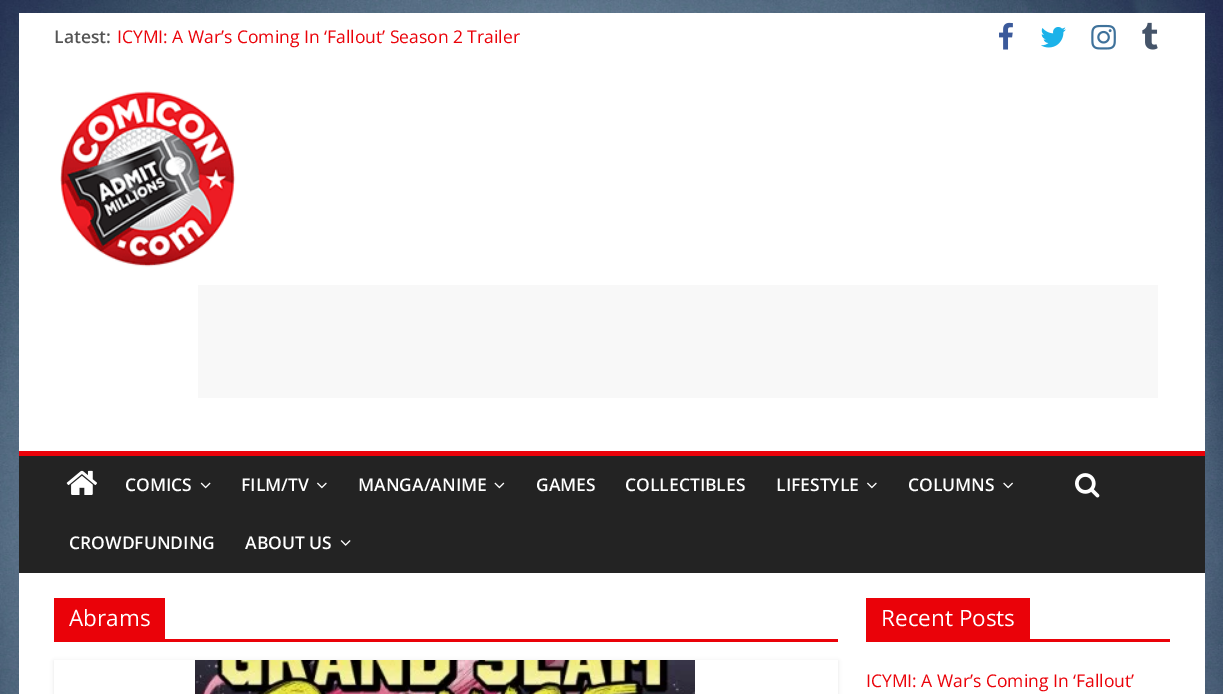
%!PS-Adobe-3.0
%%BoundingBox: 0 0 1223 694
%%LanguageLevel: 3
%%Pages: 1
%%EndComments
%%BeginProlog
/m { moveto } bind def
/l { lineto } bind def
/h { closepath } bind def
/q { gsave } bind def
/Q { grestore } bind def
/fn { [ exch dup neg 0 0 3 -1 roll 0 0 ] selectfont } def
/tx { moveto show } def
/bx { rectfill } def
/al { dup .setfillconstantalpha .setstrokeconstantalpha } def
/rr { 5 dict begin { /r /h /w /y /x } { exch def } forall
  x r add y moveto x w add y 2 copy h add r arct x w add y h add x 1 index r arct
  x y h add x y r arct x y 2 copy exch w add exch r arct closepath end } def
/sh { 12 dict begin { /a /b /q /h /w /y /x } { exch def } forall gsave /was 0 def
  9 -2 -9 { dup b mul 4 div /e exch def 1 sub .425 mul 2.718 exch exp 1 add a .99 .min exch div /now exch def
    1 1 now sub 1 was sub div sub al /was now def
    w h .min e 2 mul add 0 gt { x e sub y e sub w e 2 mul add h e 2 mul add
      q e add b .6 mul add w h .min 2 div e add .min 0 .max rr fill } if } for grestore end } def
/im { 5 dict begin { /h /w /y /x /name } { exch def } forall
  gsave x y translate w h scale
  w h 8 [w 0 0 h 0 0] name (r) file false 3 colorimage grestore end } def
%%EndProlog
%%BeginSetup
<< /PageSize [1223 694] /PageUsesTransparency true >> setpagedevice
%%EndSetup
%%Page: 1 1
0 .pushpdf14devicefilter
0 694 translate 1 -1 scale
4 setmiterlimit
1 setgray
0 0 1223 694 bx
(image0.raw) 0 0 1223 694 im
19 13 1186 438 bx
/OpenSans-SemiBold 17.5 fn
0.333 setgray
(Latest:) 54 43 tx
/OpenSans-Regular 17.5 fn
0.918 0.008 0.035 setrgbcolor
(ICYMI: A War’s Coming In ‘Fallout’ Season 2 Trailer) 117 43 tx
(image1.raw) 999 22 14 28 im
(image2.raw) 1041 27 25 21 im
(image3.raw) 1091 24 25 26 im
(image4.raw) 1142 22 16 28 im
(image5.raw) 60 91 176 176 im
0.973 setgray
198 285 960 113 bx
0.137 setgray
19 456 1186 117 bx
0.918 0.008 0.035 setrgbcolor
19 451 1186 5 bx
(image6.raw) 66 470 31 25 im
(image7.raw) 1075 473 25 25 im
/OpenSans-SemiBold 17.5 fn
1 setgray
(COMICS) 125 491 tx
(image8.raw) 200 482 11 7 im
(FILM/TV) 241 491 tx
(image9.raw) 317 482 10 7 im
(MANGA/ANIME) 358 491 tx
(image10.raw) 494 482 11 7 im
(GAMES) 536 491 tx
(COLLECTIBLES) 625 491 tx
(LIFESTYLE) 776 491 tx
(image9.raw) 867 482 10 7 im
(COLUMNS) 908 491 tx
(image11.raw) 1003 482 10 7 im
(CROWDFUNDING) 69 549 tx
(ABOUT US) 245 549 tx
(image12.raw) 340 540 11 6 im
19 573 1186 121 bx
0.918 0.008 0.035 setrgbcolor
54 639 784 3 bx
54 598 111 41 bx
/OpenSans-Regular 22.5 fn
1 setgray
(Abrams) 69 626 tx
q
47 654 m 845 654 l 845 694 l 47 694 l h 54 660 m 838 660 l 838 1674 l 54 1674 l h eoclip newpath
0 setgray
54 661 784 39 0 2 0.1 sh
Q
(image13.raw) 195 660 500 34 im
0.918 0.008 0.035 setrgbcolor
866 639 304 3 bx
866 598 164 41 bx
1 setgray
(Recent Posts) 881 626 tx
/OpenSans-Regular 17.5 fn
0.918 0.008 0.035 setrgbcolor
(ICYMI: A War’s Coming In ‘Fallout’) 866 687 tx
.poppdf14devicefilter showpage
%%EOF
